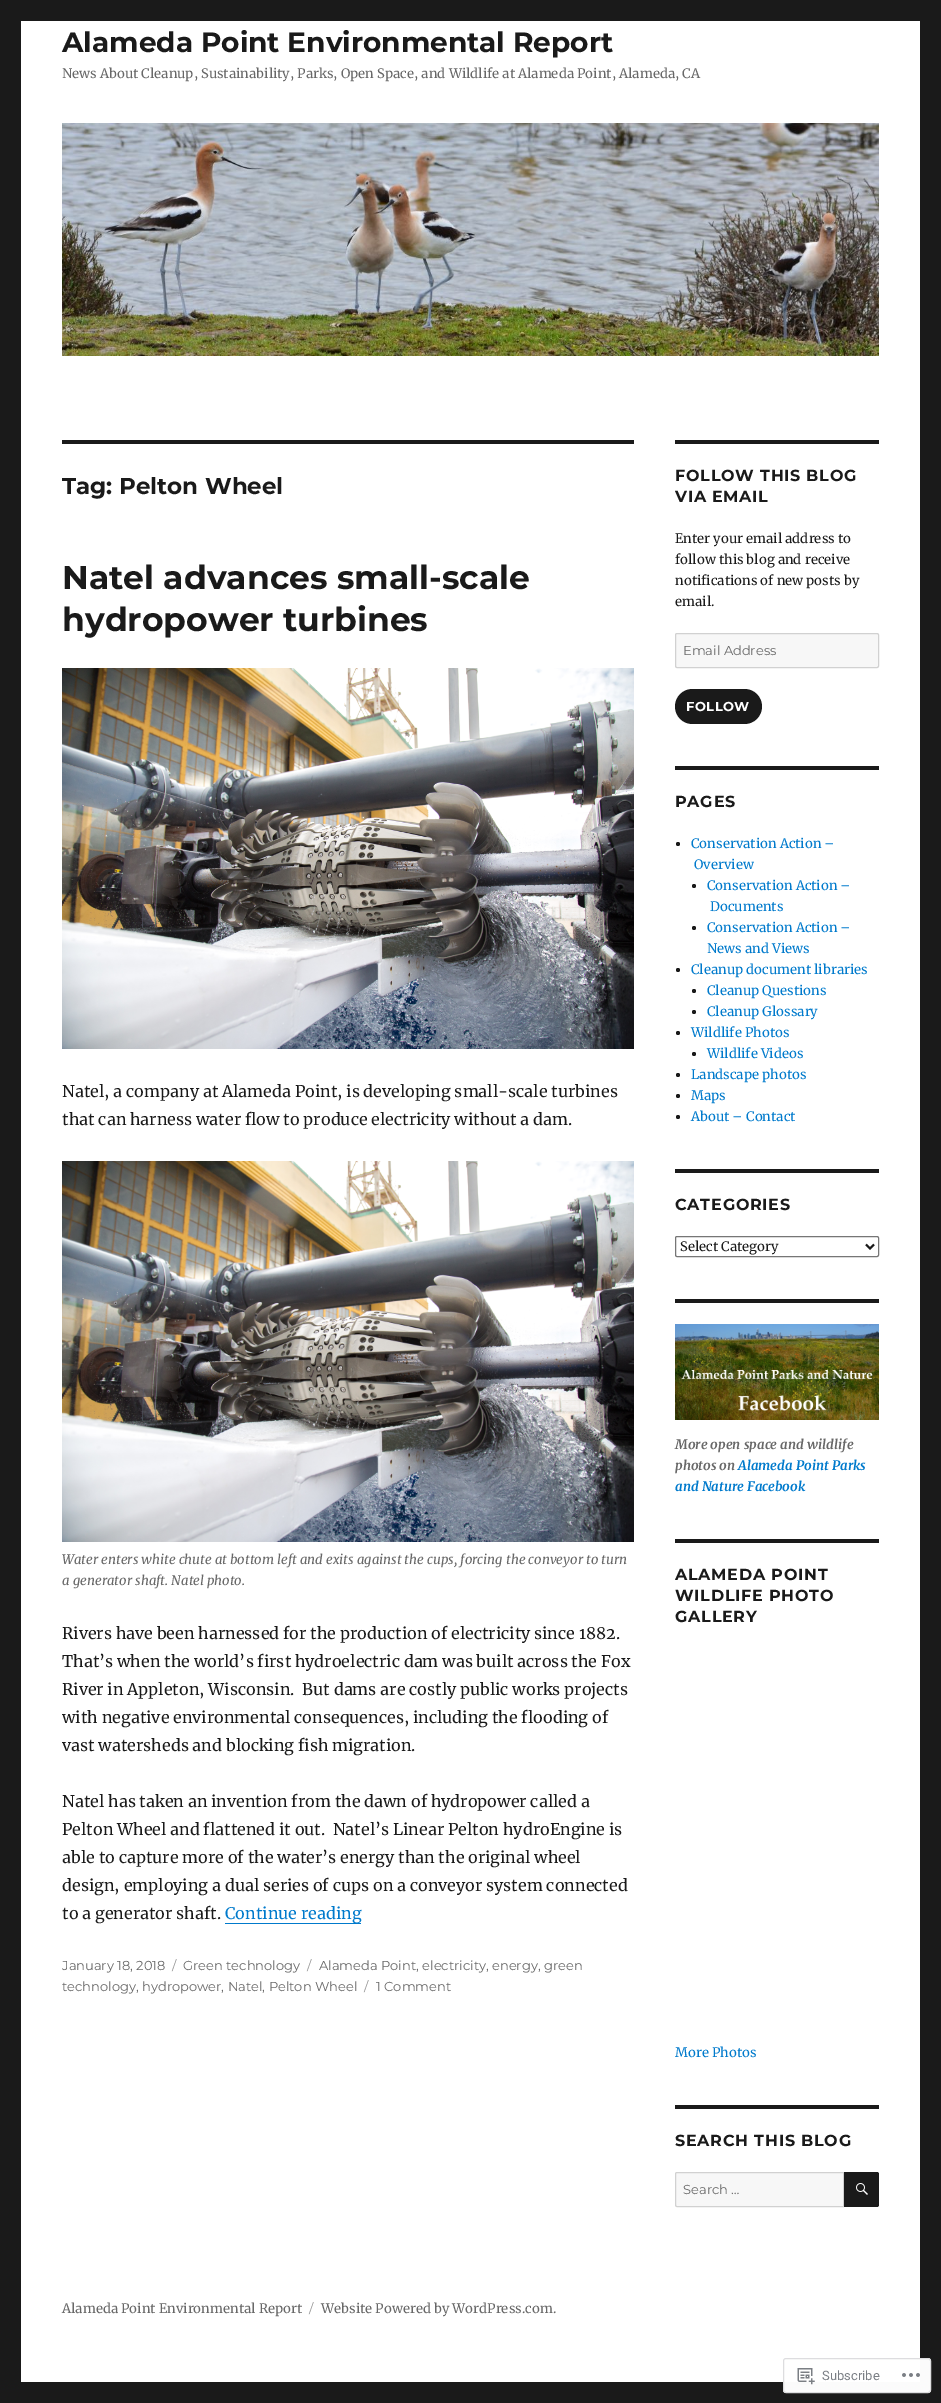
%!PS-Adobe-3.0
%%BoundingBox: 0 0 941 2403
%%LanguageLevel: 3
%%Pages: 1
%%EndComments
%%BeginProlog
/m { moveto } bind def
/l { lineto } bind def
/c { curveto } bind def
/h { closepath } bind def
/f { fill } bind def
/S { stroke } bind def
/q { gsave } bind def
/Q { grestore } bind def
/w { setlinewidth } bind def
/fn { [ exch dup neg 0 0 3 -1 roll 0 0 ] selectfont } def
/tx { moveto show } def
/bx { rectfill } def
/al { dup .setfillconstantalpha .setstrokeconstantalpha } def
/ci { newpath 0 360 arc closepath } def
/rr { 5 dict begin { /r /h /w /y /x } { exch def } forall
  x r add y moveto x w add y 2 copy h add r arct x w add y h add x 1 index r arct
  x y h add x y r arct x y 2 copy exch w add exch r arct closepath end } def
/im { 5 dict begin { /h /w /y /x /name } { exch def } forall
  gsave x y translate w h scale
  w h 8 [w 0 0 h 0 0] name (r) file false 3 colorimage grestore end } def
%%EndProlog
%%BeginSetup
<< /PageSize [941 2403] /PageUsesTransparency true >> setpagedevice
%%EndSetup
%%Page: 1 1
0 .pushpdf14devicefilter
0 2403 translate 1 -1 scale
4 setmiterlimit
0.102 setgray
0 0 941 2403 bx
1 setgray
21 21 899 2361 bx
/Montserrat-Thin 28 fn
0.102 setgray
(Alameda Point Environmental Report) 62 52 tx
/Merriweather-Regular 13 fn
0.408 setgray
(News About Cleanup, Sustainability, Parks, Open Space, and Wildlife at Alameda Point, Alameda, CA) 62 78 tx
(image0.raw) 62 123 817 233 im
0.102 setgray
62 440 572 4 bx
/Montserrat-Thin 23 fn
(Tag: Pelton Wheel) 62 494 tx
/Montserrat-Thin 33 fn
(Natel advances small-scale) 62 589 tx
(hydropower turbines) 62 631 tx
(image1.raw) 62 668 572 381 im
/Merriweather-Regular 16 fn
(Natel, a company at Alameda Point, is developing small-scale turbines) 62 1097 tx
(that can harness water flow to produce electricity without a dam.) 62 1125 tx
(image2.raw) 62 1161 572 381 im
/Merriweather-Italic 13 fn
0.408 setgray
(Water enters white chute at bottom left and exits against the cups, forcing the conveyor to turn) 62 1564 tx
(a generator shaft. Natel photo.) 62 1585 tx
/Merriweather-Regular 16 fn
0.102 setgray
(Rivers have been harnessed for the production of electricity since 1882.) 62 1639 tx
(That’s when the world’s first hydroelectric dam was built across the Fox) 62 1667 tx
(River in Appleton, Wisconsin.  But dams are costly public works projects) 62 1695 tx
(with negative environmental consequences, including the flooding of) 62 1723 tx
(vast watersheds and blocking fish migration.) 62 1751 tx
(Natel has taken an invention from the dawn of hydropower called a) 62 1807 tx
(Pelton Wheel and flattened it out.  Natel’s Linear Pelton hydroEngine is) 62 1835 tx
(able to capture more of the water’s energy than the original wheel) 62 1863 tx
(design, employing a dual series of cups on a conveyor system connected) 62 1891 tx
(to a generator shaft.) 62 1919 tx
0 0.478 0.8 setrgbcolor
225 1923 136 1 bx
(Continue reading) 225 1919 tx
/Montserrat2-Thin 13 fn
0.408 setgray
(January 18, 2018) 62 1970 tx
0.584 setgray
(/) 172 1970 tx
0.408 setgray
(Green technology) 183 1970 tx
0.584 setgray
(/) 307 1970 tx
0.408 setgray
(Alameda Point, electricity, energy, green) 319 1970 tx
(technology, hydropower, Natel, Pelton Wheel) 62 1991 tx
0.584 setgray
(/) 364 1991 tx
0.408 setgray
(1 Comment) 376 1991 tx
0.102 setgray
675 440 204 4 bx
/Montserrat-Thin 16 fn
675 481 m 0.75 0 (FOLLOW THIS BLOG) ashow
675 502 m 0.75 0 (VIA EMAIL) ashow
/Merriweather-Regular 13 fn
(Enter your email address to) 675 543 tx
(follow this blog and receive) 675 564 tx
(notifications of new posts by) 675 585 tx
(email.) 675 606 tx
0.969 setgray
675.5 633.5 203 34 1.5 rr q f Q
0.82 setgray
S
/Montserrat2-Thin 13 fn
0.408 setgray
(Email Address) 683 655 tx
0.102 setgray
675 689 87 35 17.5 rr f
/Montserrat-Thin 13 fn
1 setgray
686 711 m 0.5 0 (FOLLOW) ashow
0.102 setgray
675 766 204 4 bx
/Montserrat-Thin 16 fn
675 807 m 0.75 0 (PAGES) ashow
678 844 2 ci f
/Merriweather-Regular 13 fn
0 0.478 0.8 setrgbcolor
(Conservation Action –) 691 848 tx
(Overview) 694 869 tx
0.102 setgray
694 886 2 ci f
0 0.478 0.8 setrgbcolor
(Conservation Action –) 707 890 tx
(Documents) 710 911 tx
0.102 setgray
694 928 2 ci f
0 0.478 0.8 setrgbcolor
(Conservation Action –) 707 932 tx
(News and Views) 707 953 tx
0.102 setgray
678 970 2 ci f
0 0.478 0.8 setrgbcolor
(Cleanup document libraries) 691 974 tx
0.102 setgray
694 991 2 ci f
0 0.478 0.8 setrgbcolor
(Cleanup Questions) 707 995 tx
0.102 setgray
694 1012 2 ci f
0 0.478 0.8 setrgbcolor
(Cleanup Glossary) 707 1016 tx
0.102 setgray
678 1033 2 ci f
0 0.478 0.8 setrgbcolor
(Wildlife Photos) 691 1037 tx
0.102 setgray
694 1054 2 ci f
0 0.478 0.8 setrgbcolor
(Wildlife Videos) 707 1058 tx
0.102 setgray
678 1075 2 ci f
0 0.478 0.8 setrgbcolor
(Landscape photos) 691 1079 tx
0.102 setgray
678 1096 2 ci f
0 0.478 0.8 setrgbcolor
(Maps) 691 1100 tx
0.102 setgray
678 1117 2 ci f
0 0.478 0.8 setrgbcolor
(About – Contact) 691 1121 tx
0.102 setgray
675 1169 204 4 bx
/Montserrat-Thin 16 fn
675 1210 m 0.75 0 (CATEGORIES) ashow
0.463 setgray
675.5 1236.5 203 20 1.5 rr S
0.102 setgray
2 w
866 1244.5 m 870 1248.5 l 874 1244.5 l S
/Merriweather-Regular 13 fn
(Select Category) 680 1251 tx
675 1299 204 4 bx
(image3.raw) 675 1324 204 96 im
/Merriweather-BoldItalic 13 fn
0.408 setgray
(More open space and wildlife) 675 1449 tx
(photos on) 675 1470 tx
0 0.478 0.8 setrgbcolor
(Alameda Point Parks) 738 1470 tx
(and Nature Facebook) 675 1491 tx
0.102 setgray
675 1539 204 4 bx
/Montserrat-Thin 16 fn
675 1580 m 0.75 0 (ALAMEDA POINT) ashow
675 1601 m 0.75 0 (WILDLIFE PHOTO) ashow
675 1622 m 0.75 0 (GALLERY) ashow
/Merriweather-Regular 13 fn
0 0.478 0.8 setrgbcolor
(More Photos) 675 2057 tx
0.102 setgray
675 2105 204 4 bx
/Montserrat-Thin 16 fn
675 2146 m 0.75 0 (SEARCH THIS BLOG) ashow
0.969 setgray
677 2172.5 m 843.5 2172.5 l 843.5 2206.5 l 677 2206.5 l 676 2206.5 675.5 2206 675.5 2205 c 675.5 2174 l 675.5 2173 676 2172.5 677 2172.5 c h q f Q
0.82 setgray
1 w
S
/Montserrat2-Thin 13 fn
0.408 setgray
(Search …) 683 2194 tx
0.102 setgray
844 2172 m 877 2172 l 878 2172 879 2173 879 2174 c 879 2205 l 879 2206 878 2207 877 2207 c 844 2207 l h f
(image4.raw) 856 2183 12 12 im
/Merriweather-Regular 13 fn
0.408 setgray
(Alameda Point Environmental Report) 62 2313 tx
/Montserrat2-Thin 13 fn
0.584 setgray
(/) 309 2313 tx
/Merriweather-Regular 13 fn
0.408 setgray
(Website Powered by WordPress.com.) 321 2313 tx
0.98 al
1 setgray
783 2358 148 35 3 rr f
0.863 0.863 0.871 setrgbcolor
783.5 2358.5 147 34 2.5 rr S
1 al
(image5.raw) 797 2368 18 17 im
/Roboto-Regular 13 fn
0.482 0.498 0.522 setrgbcolor
(Subscribe) 822 2380 tx
(image6.raw) 902 2373 18 4 im
.poppdf14devicefilter showpage
%%EOF
